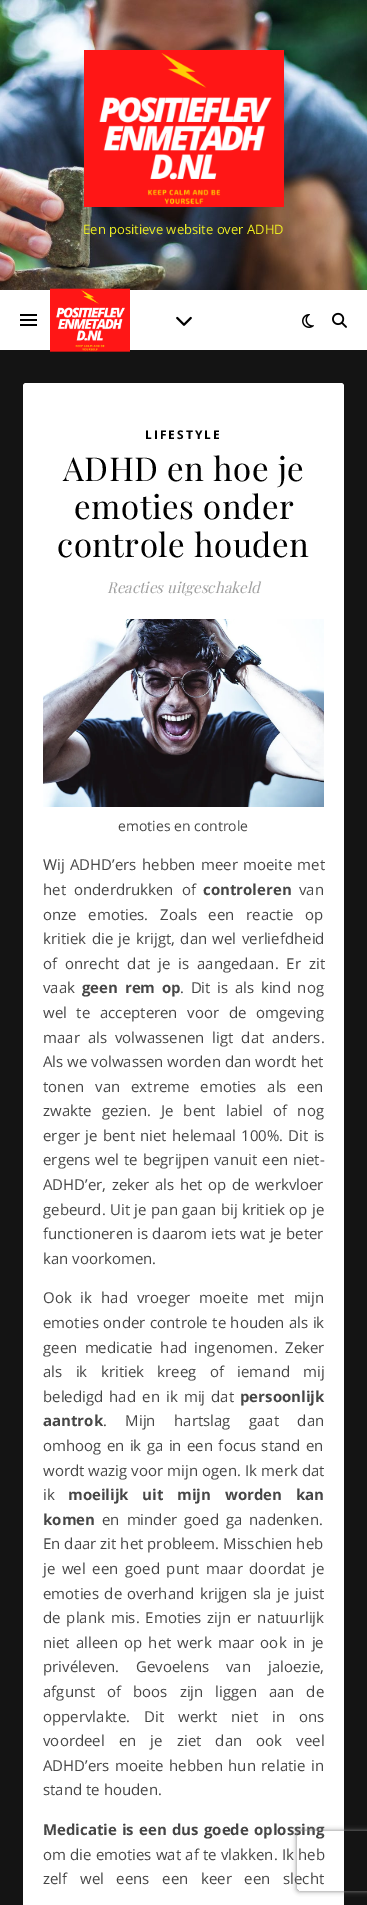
%!PS-Adobe-3.0
%%BoundingBox: 0 0 367 1905
%%LanguageLevel: 3
%%Pages: 1
%%EndComments
%%BeginProlog
/m { moveto } bind def
/l { lineto } bind def
/c { curveto } bind def
/h { closepath } bind def
/f { fill } bind def
/q { gsave } bind def
/Q { grestore } bind def
/fn { [ exch dup neg 0 0 3 -1 roll 0 0 ] selectfont } def
/tx { moveto show } def
/bx { rectfill } def
/al { dup .setfillconstantalpha .setstrokeconstantalpha } def
/rr { 5 dict begin { /r /h /w /y /x } { exch def } forall
  x r add y moveto x w add y 2 copy h add r arct x w add y h add x 1 index r arct
  x y h add x y r arct x y 2 copy exch w add exch r arct closepath end } def
/sh { 12 dict begin { /a /b /q /h /w /y /x } { exch def } forall gsave /was 0 def
  9 -2 -9 { dup b mul 4 div /e exch def 1 sub .425 mul 2.718 exch exp 1 add a .99 .min exch div /now exch def
    1 1 now sub 1 was sub div sub al /was now def
    w h .min e 2 mul add 0 gt { x e sub y e sub w e 2 mul add h e 2 mul add
      q e add b .6 mul add w h .min 2 div e add .min 0 .max rr fill } if } for grestore end } def
/im { 5 dict begin { /h /w /y /x /name } { exch def } forall
  gsave x y translate w h scale
  w h 8 [w 0 0 h 0 0] name (r) file false 3 colorimage grestore end } def
%%EndProlog
%%BeginSetup
<< /PageSize [367 1905] /PageUsesTransparency true >> setpagedevice
%%EndSetup
%%Page: 1 1
0 .pushpdf14devicefilter
0 1905 translate 1 -1 scale
4 setmiterlimit
0.078 setgray
0 0 367 1905 bx
(image0.raw) 0 0 367 290 im
(image1.raw) 84 50 200 157 im
/OpenSans-Regular 13 fn
0.933 0.933 0.133 setrgbcolor
(Een positieve website over ADHD) 83 234 tx
1 setgray
0 290 367 60 bx
0 setgray
20 314 17 2 bx
20 319 17 2 bx
20 324 17 2 bx
(image2.raw) 50 288 80 64 im
(image3.raw) 176 316 16 10 im
(image4.raw) 302 314 12 14 im
(image5.raw) 332 312 15 16 im
1 setgray
23 383 321 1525 3 rr f
/OpenSans-Bold 12 fn
0 setgray
145 439 m 2 0 (LIFESTYLE) ashow
/PlayfairDisplay-Regular 33 fn
63 481 m 0.5 0 (ADHD en hoe je) ashow
74 519 m 0.5 0 (emoties onder) ashow
57 557 m 0.5 0 (controle houden) ashow
/PlayfairDisplay-Italic 15 fn
0.631 setgray
(Reacties uitgeschakeld) 107 593 tx
(image6.raw) 43 619 281 188 im
/OpenSans-Regular 14 fn
0.275 setgray
(emoties en controle) 118 831 tx
/NotoSans-Regular 15 fn
(W) 43 870 tx
/OpenSans-Regular 15 fn
57 870 m 1.5 0 32 (ij ADHD’ers hebben meer moeite met) widthshow
43 895 m 4 0 32 (het onderdrukken of) widthshow
/OpenSans-Bold 15 fn
(controleren) 203 895 tx
/OpenSans-Regular 15 fn
(van) 299 895 tx
43 920 m 7.75 0 32 (onze emoties. Zoals een reactie op) widthshow
43 944 m 1.5 0 32 (kritiek die je krijgt, dan wel verliefdheid) widthshow
43 969 m 4 0 32 (of onrecht dat je is aangedaan. Er zit) widthshow
(vaak) 43 993 tx
/OpenSans-Bold 15 fn
82 993 m 2.75 0 32 (geen rem op) widthshow
/OpenSans-Regular 15 fn
180 993 m 2.75 0 32 (. Dit is als kind nog) widthshow
43 1018 m 5.75 0 32 (wel te accepteren voor de omgeving) widthshow
43 1043 m 4 0 32 (maar als volwassenen ligt dat anders.) widthshow
(Als we volwassen worden dan wordt het) 43 1067 tx
43 1092 m 7 0 32 (tonen van extreme emoties als een) widthshow
43 1116 m 6.25 0 32 (zwakte gezien. Je bent labiel of nog) widthshow
43 1141 m 1.25 0 32 (erger je bent niet helemaal 100%. Dit is) widthshow
43 1165 m 1 0 32 (ergens wel te begrijpen vanuit een niet-) widthshow
43 1190 m 1.5 0 32 (ADHD’er, zeker als het op de werkvloer) widthshow
43 1215 m 0.5 0 32 (gebeurd. Uit je pan gaan bij kritiek op je) widthshow
43 1239 m 0.25 0 32 (functioneren is daarom iets wat je beter) widthshow
(kan voorkomen.) 43 1264 tx
43 1303 m 5 0 32 (Ook ik had vroeger moeite met mijn) widthshow
43 1328 m 0.5 0 32 (emoties onder controle te houden als ik) widthshow
43 1353 m 3.5 0 32 (geen medicatie had ingenomen. Zeker) widthshow
43 1377 m 9.5 0 32 (als ik kritiek kreeg of iemand mij) widthshow
43 1402 m 2.25 0 32 (beledigd had en ik mij dat) widthshow
/OpenSans-Bold 15 fn
(persoonlijk) 240 1402 tx
(aantrok) 43 1426 tx
/OpenSans-Regular 15 fn
103 1426 m 14.5 0 32 (. Mijn hartslag gaat dan) widthshow
43 1451 m 1.5 0 32 (omhoog en ik ga in een focus stand en) widthshow
43 1476 m 0.25 0 32 (wordt wazig voor mijn ogen. Ik merk dat) widthshow
(ik) 43 1500 tx
/OpenSans-Bold 15 fn
68 1500 m 10 0 32 (moeilijk uit mijn worden kan) widthshow
(komen) 43 1525 tx
/OpenSans-Regular 15 fn
102 1525 m 3 0 32 (en minder goed ga nadenken.) widthshow
(En daar zit het probleem. Misschien heb) 43 1549 tx
43 1574 m 2.75 0 32 (je wel een goed punt maar doordat je) widthshow
43 1599 m 1.5 0 32 (emoties de overhand krijgen sla je juist) widthshow
43 1623 m 2 0 32 (de plank mis. Emoties zijn er natuurlijk) widthshow
43 1648 m 2.25 0 32 (niet alleen op het werk maar ook in je) widthshow
43 1672 m 13 0 32 (privéleven. Gevoelens van jaloezie,) widthshow
43 1697 m 8 0 32 (afgunst of boos zijn liggen aan de) widthshow
43 1722 m 10 0 32 (oppervlakte. Dit werkt niet in ons) widthshow
43 1746 m 10.25 0 32 (voordeel en je ziet dan ook veel) widthshow
43 1771 m 1.5 0 32 (ADHD’ers moeite hebben hun relatie in) widthshow
(stand te houden.) 43 1795 tx
/OpenSans-Bold 15 fn
43 1835 m 1.25 0 32 (Medicatie is een dus goede oplossing) widthshow
/OpenSans-Regular 15 fn
43 1860 m 0.25 0 32 (om die emoties wat af te vlakken. Ik heb) widthshow
43 1884 m 8.75 0 32 (zelf wel eens een keer een slecht) widthshow
q
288 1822 m 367 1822 l 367 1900 l 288 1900 l h 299 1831 m 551 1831 l 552 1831 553 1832 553 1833 c 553 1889 l 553 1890 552 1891 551 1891 c 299 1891 l 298 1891 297 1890 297 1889 c 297 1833 l 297 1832 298 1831 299 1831 c h eoclip newpath
0.502 setgray
297 1831 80 60 2 2.5 1 sh
Q
.poppdf14devicefilter showpage
%%EOF
